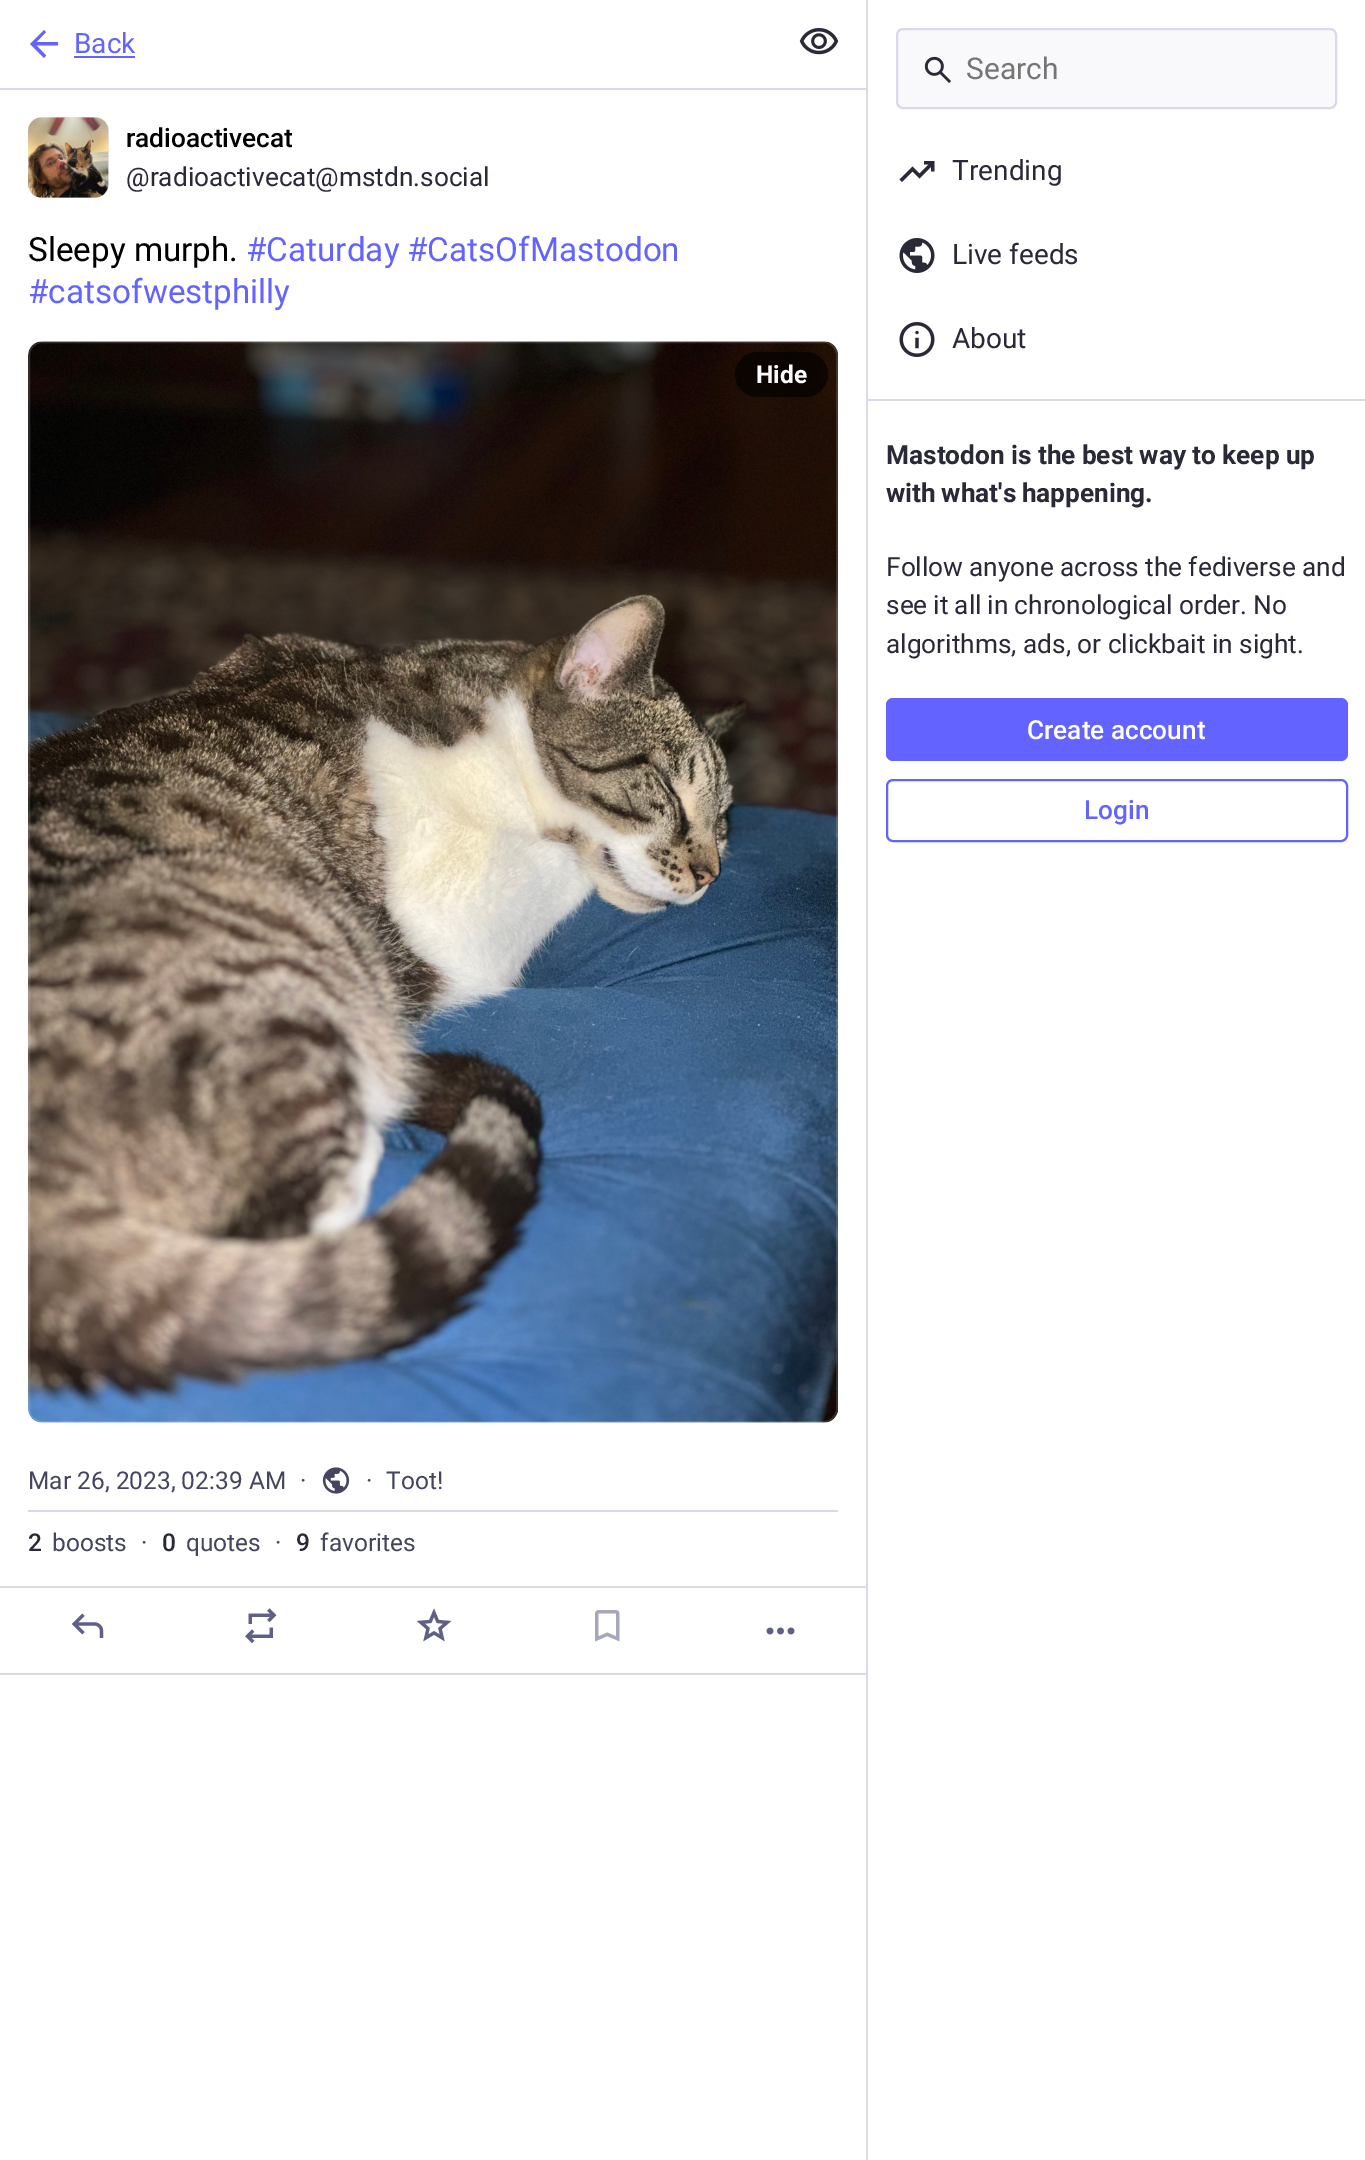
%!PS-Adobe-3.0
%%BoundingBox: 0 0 1365 2160
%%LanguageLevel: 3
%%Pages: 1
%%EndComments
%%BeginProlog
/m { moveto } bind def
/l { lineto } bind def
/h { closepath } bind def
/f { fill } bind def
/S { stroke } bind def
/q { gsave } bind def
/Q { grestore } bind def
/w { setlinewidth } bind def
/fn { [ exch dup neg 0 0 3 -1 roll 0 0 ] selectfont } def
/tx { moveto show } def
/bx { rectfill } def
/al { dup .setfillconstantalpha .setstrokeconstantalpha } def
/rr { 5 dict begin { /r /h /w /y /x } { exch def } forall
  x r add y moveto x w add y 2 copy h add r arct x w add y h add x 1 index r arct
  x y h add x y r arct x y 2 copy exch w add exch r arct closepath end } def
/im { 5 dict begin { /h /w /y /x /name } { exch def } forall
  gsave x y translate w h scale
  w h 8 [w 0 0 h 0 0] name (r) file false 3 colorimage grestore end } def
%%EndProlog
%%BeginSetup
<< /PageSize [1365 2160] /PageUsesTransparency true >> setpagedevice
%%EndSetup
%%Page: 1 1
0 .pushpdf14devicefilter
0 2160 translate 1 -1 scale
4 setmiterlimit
1 setgray
0 0 1365 2160 bx
0.851 0.851 0.91 setrgbcolor
0 88 866 2 bx
0.388 0.392 1 setrgbcolor
36.5 45.5 m 46 55.5 l 44 58 l 30 44 l 44 30 l 46 32 l 36.5 42 l 58 42 l 58 45.5 l h f
/Roboto-Regular 28 fn
(Back) 74 53 tx
74 56 61 2 bx
(image0.raw) 799 28 40 27 im
0.91 0.902 0.941 setrgbcolor
28 117 81 81 14 rr f
(image1.raw) 28 117 81 81 im
/Roboto-Medium 26.25 fn
0 setgray
(radioactivecat) 126 147 tx
/Roboto-Regular 26.25 fn
0.161 0.161 0.22 setrgbcolor
(@radioactivecat@mstdn.social) 126 186 tx
/Roboto-Regular 33.25 fn
0 setgray
(Sleepy murph.) 28 261 tx
0.388 0.392 1 setrgbcolor
(#Caturday) 246 261 tx
(#CatsOfMastodon) 407 261 tx
(#catsofwestphilly) 28 303 tx
(image2.raw) 28 341 810 1082 im
0.15 al
0.988 0.973 1 setrgbcolor
2 w
29 342 808 1080 13 rr S
0.65 al
0 setgray
735 352 93 45 22.5 rr f
/Roboto-Bold 24.5 fn
1 al
1 setgray
(Hide) 756 383 tx
0.851 0.851 0.91 setrgbcolor
28 1510 810 2 bx
/Roboto-Regular 24.5 fn
0.271 0.271 0.373 setrgbcolor
(Mar 26, 2023, 02:39 AM) 28 1489 tx
(·) 300 1489 tx
(image3.raw) 322 1467 28 27 im
(·) 366 1489 tx
(Toot!) 386 1489 tx
/Roboto-Medium 24.5 fn
0.161 0.161 0.22 setrgbcolor
(2) 28 1551 tx
/Roboto-Regular 24.5 fn
0.271 0.271 0.373 setrgbcolor
(boosts) 52 1551 tx
(·) 141 1551 tx
/Roboto-Medium 24.5 fn
0.161 0.161 0.22 setrgbcolor
(0) 162 1551 tx
/Roboto-Regular 24.5 fn
0.271 0.271 0.373 setrgbcolor
(quotes) 186 1551 tx
(·) 275 1551 tx
/Roboto-Medium 24.5 fn
0.161 0.161 0.22 setrgbcolor
(9) 296 1551 tx
/Roboto-Regular 24.5 fn
0.271 0.271 0.373 setrgbcolor
(favorites) 320 1551 tx
0.851 0.851 0.91 setrgbcolor
0 1586 866 2 bx
0 1673 866 2 bx
(image4.raw) 71 1613 33 25 im
(image5.raw) 245 1608 32 36 im
(image6.raw) 416 1608 36 34 im
(image7.raw) 595 1610 25 32 im
(image8.raw) 766 1627 29 8 im
866 0 2 2160 bx
0.976 0.976 0.984 setrgbcolor
897 29 439 79 6 rr q f Q
0.851 0.851 0.91 setrgbcolor
S
(image9.raw) 924 56 27 27 im
/Roboto-Regular 30 fn
0.459 setgray
(Search) 966 79 tx
0.161 0.161 0.22 setrgbcolor
902 182 m 899.5 179.5 l 912.5 166.5 l 919.5 173.5 l 928.5 164.5 l 924 164.5 l 924 161 l 934.5 161 l 934.5 171.5 l 931 171.5 l 931 167 l 919.5 178.5 l 912.5 171.5 l h f
/Roboto-Regular 28 fn
(Trending) 952 180 tx
(image10.raw) 899 238 36 35 im
(Live feeds) 952 264 tx
(image11.raw) 899 322 36 35 im
(About) 952 348 tx
0.851 0.851 0.91 setrgbcolor
868 399 497 2 bx
/Roboto-Bold 26.25 fn
0.161 0.161 0.22 setrgbcolor
886 464 m -0.25 0 32 (Mastodon is the best way to keep up) widthshow
886 502 m -1 0 32 (with what's happening.) widthshow
/Roboto-Regular 26.25 fn
886 576 m -0.25 0 32 (Follow anyone across the fediverse and) widthshow
886 614 m -0.5 0 32 (see it all in chronological order. No) widthshow
(algorithms, ads, or clickbait in sight.) 886 653 tx
0.388 0.392 1 setrgbcolor
886 698 462 63 7 rr f
/Roboto-Medium 26.25 fn
1 setgray
(Create account) 1027 739 tx
0.388 0.392 1 setrgbcolor
887 780 460 61 6 rr S
(Login) 1084 819 tx
.poppdf14devicefilter showpage
%%EOF
